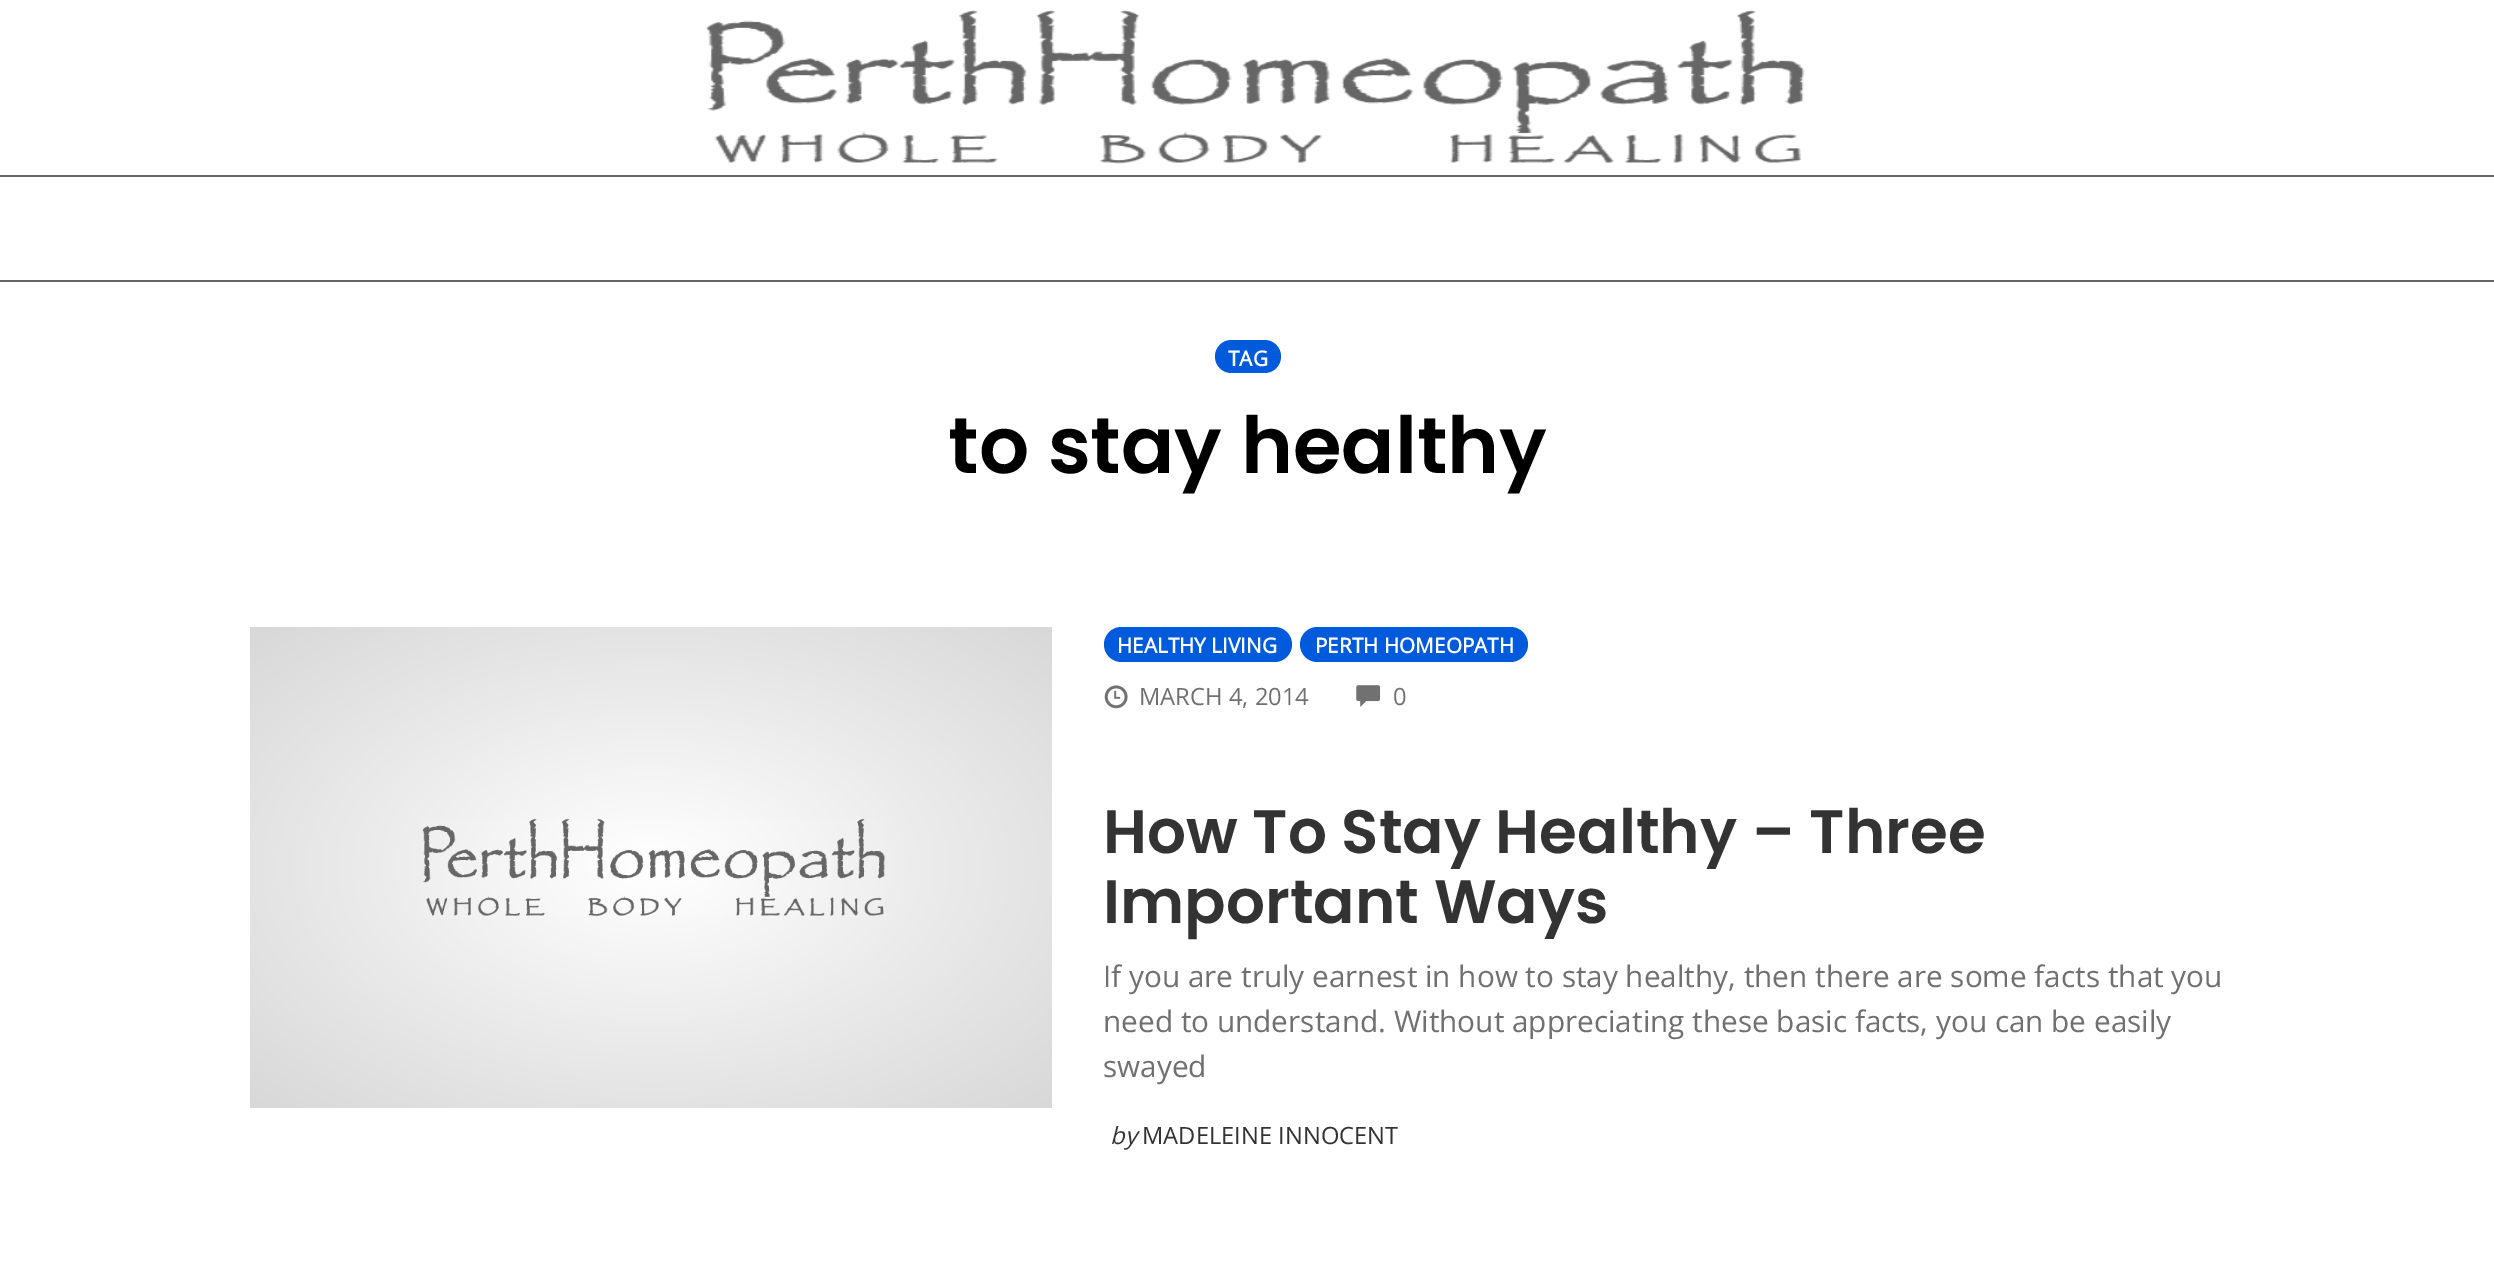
%!PS-Adobe-3.0
%%BoundingBox: 0 0 2494 1264
%%LanguageLevel: 3
%%Pages: 1
%%EndComments
%%BeginProlog
/m { moveto } bind def
/l { lineto } bind def
/h { closepath } bind def
/f { fill } bind def
/q { gsave } bind def
/Q { grestore } bind def
/fn { [ exch dup neg 0 0 3 -1 roll 0 0 ] selectfont } def
/tx { moveto show } def
/bx { rectfill } def
/rr { 5 dict begin { /r /h /w /y /x } { exch def } forall
  x r add y moveto x w add y 2 copy h add r arct x w add y h add x 1 index r arct
  x y h add x y r arct x y 2 copy exch w add exch r arct closepath end } def
/im { 5 dict begin { /h /w /y /x /name } { exch def } forall
  gsave x y translate w h scale
  w h 8 [w 0 0 h 0 0] name (r) file false 3 colorimage grestore end } def
%%EndProlog
%%BeginSetup
<< /PageSize [2494 1264] >> setpagedevice
%%EndSetup
%%Page: 1 1
0 1264 translate 1 -1 scale
4 setmiterlimit
1 setgray
0 0 2494 1264 bx
0.4 setgray
0 280 2494 2 bx
(image0.raw) 705 10 1100 154 im
0 175 2494 2 bx
0 0.357 0.863 setrgbcolor
1215 340 66 33 16.5 rr f
/OpenSans-Bold 20.75 fn
1 setgray
(TAG) 1228 366 tx
/Poppins-SemiBold 78.75 fn
0 setgray
(to stay healthy) 948 473 tx
q 250 627 m 1052 627 l 1052 1108 l 250 1108 l h clip newpath 651 867 translate 567 340 scale
<< /ShadingType 3 /ColorSpace /DeviceRGB /Coords [0 0 0 0 0 1] /Extend [true true] /Function << /FunctionType 2 /Domain [0 1] /C0 [1 1 1] /C1 [0.847 0.847 0.847] /N 1 >> >> shfill Q
(image1.raw) 422 818 463 99 im
0 0.357 0.863 setrgbcolor
1104 627 188 35 17.5 rr f
/OpenSans-Bold 20.75 fn
1 setgray
(HEALTHY LIVING) 1117 653 tx
0 0.357 0.863 setrgbcolor
1300 627 228 35 17.5 rr f
1 setgray
(PERTH HOMEOPATH) 1315 653 tx
(image2.raw) 1104 685 24 24 im
/OpenSans-Regular 23.75 fn
0.439 setgray
(MARCH 4, 2014) 1139 705 tx
(image3.raw) 1356 685 25 22 im
(0) 1393 705 tx
/Poppins-SemiBold 61.25 fn
0.2 setgray
(How To Stay Healthy – Three) 1103 853 tx
(Important Ways) 1103 923 tx
/OpenSans-Regular 29.75 fn
0.439 setgray
(If you are truly earnest in how to stay healthy, then there are some facts that you) 1103 987 tx
(need to understand. Without appreciating these basic facts, you can be easily) 1103 1032 tx
(swayed) 1103 1077 tx
/OpenSans-Italic 23.75 fn
0.2 setgray
(by) 1110 1144 tx
/OpenSans-Regular 23.75 fn
(MADELEINE INNOCENT) 1142 1144 tx
showpage
%%EOF
